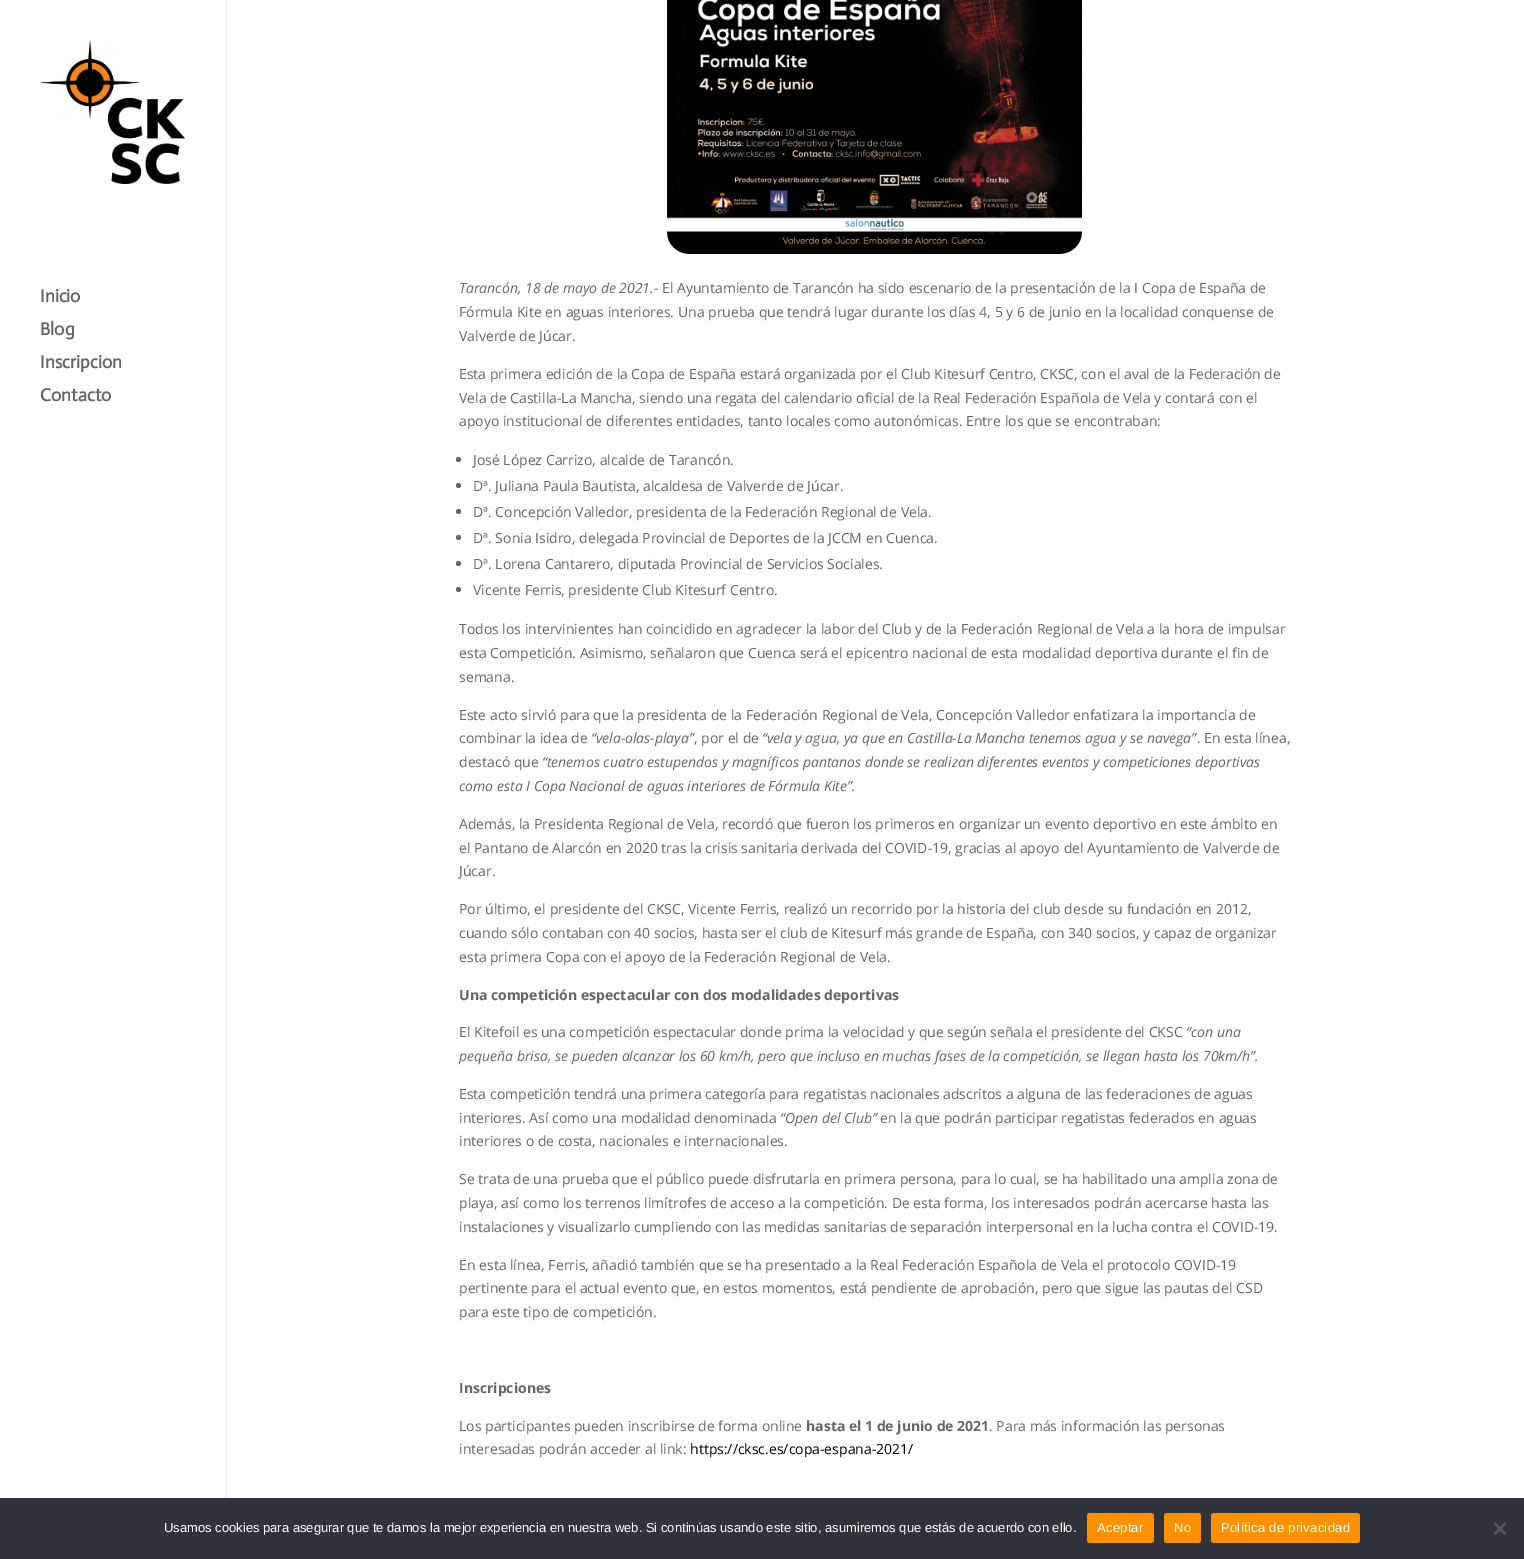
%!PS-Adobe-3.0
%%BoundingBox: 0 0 1524 1559
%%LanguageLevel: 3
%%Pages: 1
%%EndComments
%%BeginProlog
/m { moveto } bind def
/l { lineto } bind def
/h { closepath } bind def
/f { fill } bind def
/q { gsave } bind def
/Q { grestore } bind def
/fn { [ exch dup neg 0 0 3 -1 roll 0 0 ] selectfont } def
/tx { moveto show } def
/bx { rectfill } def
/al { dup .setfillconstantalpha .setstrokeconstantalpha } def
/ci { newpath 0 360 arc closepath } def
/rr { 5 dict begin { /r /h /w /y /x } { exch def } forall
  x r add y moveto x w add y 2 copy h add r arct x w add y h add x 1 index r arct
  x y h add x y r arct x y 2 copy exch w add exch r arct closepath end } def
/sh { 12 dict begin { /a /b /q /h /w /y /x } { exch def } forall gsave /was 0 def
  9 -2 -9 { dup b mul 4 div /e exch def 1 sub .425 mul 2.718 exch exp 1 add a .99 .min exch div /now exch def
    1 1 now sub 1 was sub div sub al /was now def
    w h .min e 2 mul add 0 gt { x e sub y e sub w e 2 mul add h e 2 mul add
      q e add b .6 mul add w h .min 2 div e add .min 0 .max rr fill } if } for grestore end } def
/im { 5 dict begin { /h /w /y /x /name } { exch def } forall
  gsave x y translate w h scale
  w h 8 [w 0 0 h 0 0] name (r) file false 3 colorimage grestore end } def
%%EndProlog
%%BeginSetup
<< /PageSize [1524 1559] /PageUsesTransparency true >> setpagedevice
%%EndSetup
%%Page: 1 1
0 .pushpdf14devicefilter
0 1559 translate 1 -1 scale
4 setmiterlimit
1 setgray
0 0 1524 1559 bx
q
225 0 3 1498 rectclip
0 setgray
0 0 225 1559 0 3.5 0.1 sh
Q
(image0.raw) 40 40 145 144 im
/Actor-Bold 18 fn
0.4 setgray
(Inicio) 40 302 tx
(Blog) 40 335 tx
(Inscripcion) 40 368 tx
(Contacto) 40 401 tx
(image1.raw) 667 0 415 254 im
/OpenSans-Italic 14 fn
(Tarancón, 18 de mayo de 2021.-) 459 293 tx
/OpenSans-Regular 14 fn
(El Ayuntamiento de Tarancón ha sido escenario de la presentación de la I Copa de España de) 662 293 tx
(Fórmula Kite en aguas interiores. Una prueba que tendrá lugar durante los días 4, 5 y 6 de junio en la localidad conquense de) 459 317 tx
(Valverde de Júcar.) 459 341 tx
(Esta primera edición de la Copa de España estará organizada por el Club Kitesurf Centro, CKSC, con el aval de la Federación de) 459 379 tx
(Vela de Castilla-La Mancha, siendo una regata del calendario oficial de la Real Federación Española de Vela y contará con el) 459 403 tx
(apoyo institucional de diferentes entidades, tanto locales como autonómicas. Entre los que se encontraban:) 459 426 tx
458.5 459.5 2.5 ci f
(José López Carrizo, alcalde de Tarancón.) 473 465 tx
458.5 485.5 2.5 ci f
(Dª. Juliana Paula Bautista, alcaldesa de Valverde de Júcar.) 473 491 tx
458.5 511.5 2.5 ci f
(Dª. Concepción Valledor, presidenta de la Federación Regional de Vela.) 473 517 tx
458.5 537.5 2.5 ci f
(Dª. Sonia Isidro, delegada Provincial de Deportes de la JCCM en Cuenca.) 473 543 tx
458.5 563.5 2.5 ci f
(Dª. Lorena Cantarero, diputada Provincial de Servicios Sociales.) 473 569 tx
458.5 589.5 2.5 ci f
(Vicente Ferris, presidente Club Kitesurf Centro.) 473 595 tx
(Todos los intervinientes han coincidido en agradecer la labor del Club y de la Federación Regional de Vela a la hora de impulsar) 459 634 tx
(esta Competición. Asimismo, señalaron que Cuenca será el epicentro nacional de esta modalidad deportiva durante el fin de) 459 658 tx
(semana.) 459 682 tx
(Este acto sirvió para que la presidenta de la Federación Regional de Vela, Concepción Valledor enfatizara la importancia de) 459 720 tx
(combinar la idea de) 459 743 tx
/OpenSans-Italic 14 fn
(“vela-olas-playa”) 591 743 tx
/OpenSans-Regular 14 fn
(, por el de) 694 743 tx
/OpenSans-Italic 14 fn
(“vela y agua, ya que en Castilla-La Mancha tenemos agua y se navega”) 762 743 tx
/OpenSans-Regular 14 fn
(. En esta línea,) 1197 743 tx
(destacó que) 459 767 tx
/OpenSans-Italic 14 fn
(“tenemos cuatro estupendos y magníficos pantanos donde se realizan diferentes eventos y competiciones deportivas) 542 767 tx
(como esta I Copa Nacional de aguas interiores de Fórmula Kite”.) 459 791 tx
/OpenSans-Regular 14 fn
(Además, la Presidenta Regional de Vela, recordó que fueron los primeros en organizar un evento deportivo en este ámbito en) 459 829 tx
(el Pantano de Alarcón en 2020 tras la crisis sanitaria derivada del COVID-19, gracias al apoyo del Ayuntamiento de Valverde de) 459 853 tx
(Júcar.) 459 876 tx
(Por último, el presidente del CKSC, Vicente Ferris, realizó un recorrido por la historia del club desde su fundación en 2012,) 459 914 tx
(cuando sólo contaban con 40 socios, hasta ser el club de Kitesurf más grande de España, con 340 socios, y capaz de organizar) 459 938 tx
(esta primera Copa con el apoyo de la Federación Regional de Vela.) 459 962 tx
/OpenSans-Bold 14 fn
(Una competición espectacular con dos modalidades deportivas) 459 1000 tx
/OpenSans-Regular 14 fn
(El Kitefoil es una competición espectacular donde prima la velocidad y que según señala el presidente del CKSC) 459 1037 tx
/OpenSans-Italic 14 fn
(“con una) 1186 1037 tx
(pequeña brisa, se pueden alcanzar los 60 km/h, pero que incluso en muchas fases de la competición, se llegan hasta los 70km/h”.) 459 1061 tx
/OpenSans-Regular 14 fn
(Esta competición tendrá una primera categoría para regatistas nacionales adscritos a alguna de las federaciones de aguas) 459 1099 tx
(interiores. Así como una modalidad denominada) 459 1123 tx
/OpenSans-Italic 14 fn
(“Open del Club”) 780 1123 tx
/OpenSans-Regular 14 fn
(en la que podrán participar regatistas federados en aguas) 880 1123 tx
(interiores o de costa, nacionales e internacionales.) 459 1146 tx
(Se trata de una prueba que el público puede disfrutarla en primera persona, para lo cual, se ha habilitado una amplia zona de) 459 1184 tx
(playa, así como los terrenos limítrofes de acceso a la competición. De esta forma, los interesados podrán acercarse hasta las) 459 1208 tx
(instalaciones y visualizarlo cumpliendo con las medidas sanitarias de separación interpersonal en la lucha contra el COVID-19.) 459 1232 tx
(En esta línea, Ferris, añadió también que se ha presentado a la Real Federación Española de Vela el protocolo COVID-19) 459 1270 tx
(pertinente para el actual evento que, en estos momentos, está pendiente de aprobación, pero que sigue las pautas del CSD) 459 1293 tx
(para este tipo de competición.) 459 1317 tx
/OpenSans-Bold 14 fn
(Inscripciones) 459 1393 tx
/OpenSans-Regular 14 fn
(Los participantes pueden inscribirse de forma online) 459 1431 tx
/OpenSans-Bold 14 fn
(hasta el 1 de junio de 2021) 806 1431 tx
/OpenSans-Regular 14 fn
(. Para más información las personas) 989 1431 tx
(interesadas podrán acceder al link:) 459 1454 tx
0 setgray
(https://cksc.es/copa-espana-2021/) 690 1454 tx
0.196 0.196 0.227 setrgbcolor
0 1498 1524 61 bx
/LiberationSans-Regular 13 fn
1 setgray
(Usamos cookies para asegurar que te damos la mejor experiencia en nuestra web. Si continúas usando este sitio, asumiremos que estás de acuerdo con ello.) 164 1532 tx
1 0.565 0 setrgbcolor
1087 1513 67 30 3 rr f
1 setgray
1097 1532 m 0.25 0 (Aceptar) ashow
1 0.565 0 setrgbcolor
1164 1513 37 30 3 rr f
1 setgray
1174 1532 m 0.25 0 (No) ashow
1 0.565 0 setrgbcolor
1211 1513 149 30 3 rr f
1 setgray
1221 1532 m 0.25 0 (Política de privacidad) ashow
0.349 0.349 0.365 setrgbcolor
1504.5 1522.5 m 1506 1524 l 1495.5 1535 l 1494 1533.5 l h f
1494 1524 m 1495.5 1522.5 l 1506 1533.5 l 1504.5 1535 l h f
.poppdf14devicefilter showpage
%%EOF
